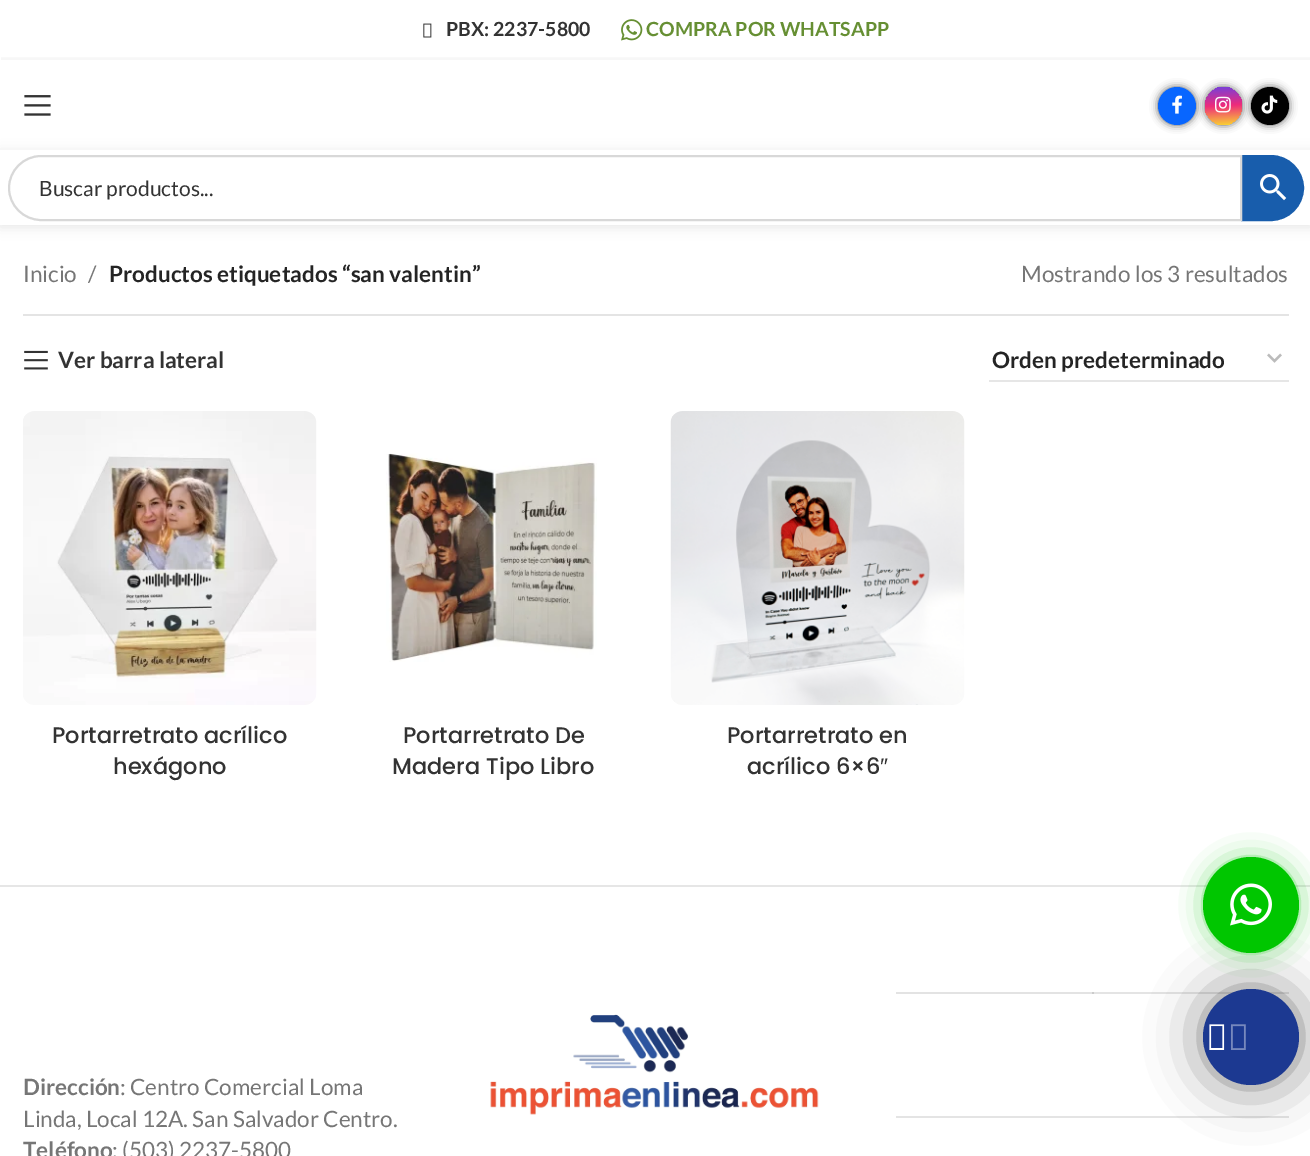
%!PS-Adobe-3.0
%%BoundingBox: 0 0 1310 1156
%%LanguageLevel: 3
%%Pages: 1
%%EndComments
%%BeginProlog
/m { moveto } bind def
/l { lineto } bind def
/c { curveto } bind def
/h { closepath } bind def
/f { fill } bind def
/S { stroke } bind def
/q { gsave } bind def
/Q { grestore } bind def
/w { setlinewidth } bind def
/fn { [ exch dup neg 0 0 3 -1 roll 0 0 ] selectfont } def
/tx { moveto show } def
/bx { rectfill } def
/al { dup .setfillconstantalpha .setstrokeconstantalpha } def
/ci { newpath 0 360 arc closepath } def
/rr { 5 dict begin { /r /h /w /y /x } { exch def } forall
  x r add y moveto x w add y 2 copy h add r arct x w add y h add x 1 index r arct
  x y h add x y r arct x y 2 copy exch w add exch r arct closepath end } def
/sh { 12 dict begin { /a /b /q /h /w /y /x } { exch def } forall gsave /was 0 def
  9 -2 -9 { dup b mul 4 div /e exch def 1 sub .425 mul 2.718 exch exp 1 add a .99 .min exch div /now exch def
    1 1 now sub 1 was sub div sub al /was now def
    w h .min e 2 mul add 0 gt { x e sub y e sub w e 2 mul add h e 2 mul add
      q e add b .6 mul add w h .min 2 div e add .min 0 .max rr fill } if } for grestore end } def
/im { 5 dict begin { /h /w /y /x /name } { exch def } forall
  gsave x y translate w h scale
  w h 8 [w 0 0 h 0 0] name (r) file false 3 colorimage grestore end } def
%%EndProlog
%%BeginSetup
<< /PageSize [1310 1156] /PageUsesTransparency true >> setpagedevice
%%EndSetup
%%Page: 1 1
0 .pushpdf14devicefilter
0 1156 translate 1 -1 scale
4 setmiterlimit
1 setgray
0 0 1310 1156 bx
0.89 setgray
896 992 198 2 bx
(image0.raw) 423 23 9 15 im
/Lato-Bold 19.5 fn
0.2 setgray
(PBX: 2237-5800) 446 36 tx
(image1.raw) 621 19 22 22 im
0.4 0.561 0.2 setrgbcolor
(COMPRA POR WHATSAPP) 646 36 tx
q
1 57 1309 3 rectclip
0 setgray
0 62 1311 90 0 6 0.1 sh
Q
(image2.raw) 24 95 27 21 im
0.357 setgray
1158 87 38 38 19 4 1 sh
0.031 0.4 1 setrgbcolor
1177 106 19 ci f
(image3.raw) 1172 95 10 19 im
0.357 setgray
1205 87 37 38 18.5 4 1 sh
q 1205 87 37 38 18.5 rr clip newpath
<< /ShadingType 2 /ColorSpace /DeviceRGB /Coords [1224 125 1222 86] /Extend [true true] /Function << /FunctionType 3 /Domain [0 1] /Functions [<< /FunctionType 2 /Domain [0 1] /C0 [0.976 0.808 0.204] /C1 [0.933 0.165 0.482] /N 1 >> << /FunctionType 2 /Domain [0 1] /C0 [0.933 0.165 0.482] /C1 [0.455 0.251 0.863] /N 1 >>] /Bounds [0.5] /Encode [0 1 0 1] >> >> shfill Q
(image4.raw) 1215 96 16 17 im
1251 87 38 38 19 4 1 sh
0.004 setgray
1270 106 19 ci f
(image5.raw) 1261 95 17 19 im
0 setgray
0 152 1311 75 0 6 0.1 sh
1 setgray
0 150 1310 75 bx
0.094 0.365 0.675 setrgbcolor
1242 156 m 1271 156 l 1288.5 156 1303 170.5 1303 188 c 1303 205.5 1288.5 220 1271 220 c 1242 220 l h q f Q
2 w
S
1 setgray
41 156 m 1241 156 l 1241 220 l 41 220 l 23.5 220 9 205.5 9 188 c 9 170.5 23.5 156 41 156 c h q f Q
0.847 setgray
S
/Lato-Regular 21 fn
0.2 setgray
(Buscar productos...) 39 196 tx
(image6.raw) 1260 174 27 27 im
0.894 setgray
23 314 1266 2 bx
/Lato-Regular 22.5 fn
0.463 setgray
(Inicio) 23 282 tx
(/) 88 282 tx
/Lato-Bold 22.5 fn
0.141 setgray
(Productos etiquetados “san valentin”) 109 282 tx
/Lato-Regular 22.5 fn
0.463 setgray
(Mostrando los 3 resultados) 1021 282 tx
(image7.raw) 24 350 24 20 im
/Lato-Bold 22.5 fn
0.2 setgray
(Ver barra lateral) 58 368 tx
0.733 setgray
2.2 w
1268 354.5 m 1274.5 361 l 1281 354.5 l S
0.902 setgray
989 380 300 2 bx
0.141 setgray
(Orden predeterminado) 992 368 tx
(image8.raw) 23 411 294 294 im
/Poppins-Medium 22.5 fn
0.2 setgray
(Portarretrato acrílico) 52 743 tx
(hexágono) 113 774 tx
(image9.raw) 386 453 211 209 im
(Portarretrato De) 403 743 tx
(Madera Tipo Libro) 392 774 tx
(image10.raw) 670 411 295 294 im
(Portarretrato en) 727 743 tx
(acrílico 6×6) 747 774 tx
/LiberationSans-Regular 22.5 fn
(″) 880 774 tx
0.902 setgray
0 885 1310 2 bx
/Lato-Bold 22.5 fn
0.463 setgray
(Dirección) 23 1095 tx
/Lato-Regular 22.5 fn
(: Centro Comercial Loma) 120 1095 tx
(Linda, Local 12A. San Salvador Centro.) 23 1127 tx
/Lato-Bold 22.5 fn
(Teléfono) 23 1158 tx
/Lato-Regular 22.5 fn
(: \(503\) 2237-5800) 112 1158 tx
(image11.raw) 490 1014 329 101 im
0.894 setgray
1092 992 197 2 bx
0.796 setgray
1092 992 2 2 bx
0.894 setgray
896 1116 393 2 bx
0 setgray
1203 989 96 96 48 27 0.5 sh
0.11 0.224 0.569 setrgbcolor
1251 1037 48 ci f
0 0.776 0 setrgbcolor
1212 866 78 78 39 15 1 sh
1251 905 48 ci f
(image12.raw) 1230 883 42 43 im
1 setgray
1209.5 1050 m 1209.5 1024.5 l 1224 1024.5 l 1224 1050 l h 1211 1048 m 1222.5 1048 l 1222.5 1026 l 1211 1026 l h f
(image13.raw) 1209 1024 37 26 im
.poppdf14devicefilter showpage
%%EOF
